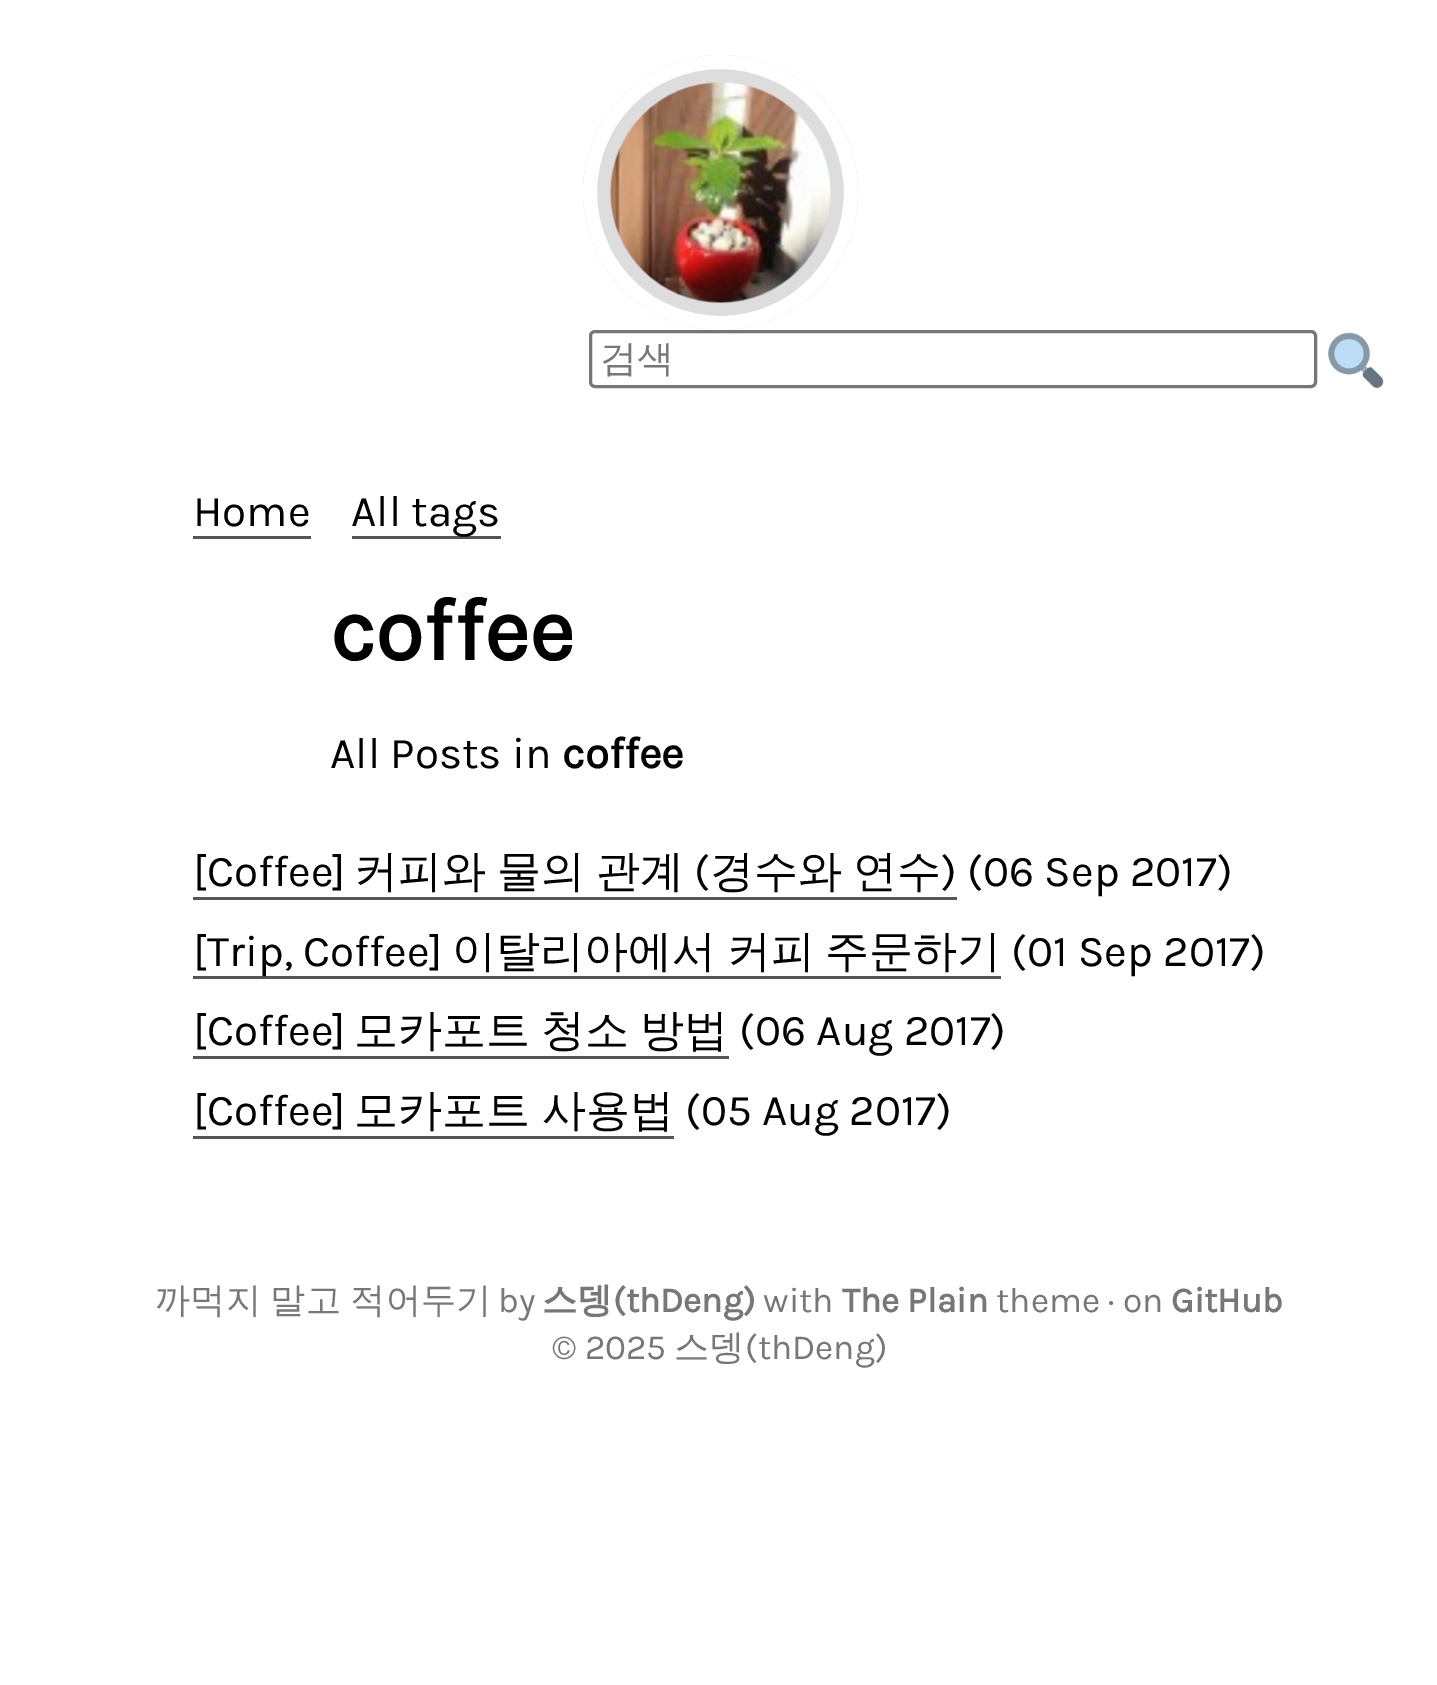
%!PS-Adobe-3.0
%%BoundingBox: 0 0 1437 1685
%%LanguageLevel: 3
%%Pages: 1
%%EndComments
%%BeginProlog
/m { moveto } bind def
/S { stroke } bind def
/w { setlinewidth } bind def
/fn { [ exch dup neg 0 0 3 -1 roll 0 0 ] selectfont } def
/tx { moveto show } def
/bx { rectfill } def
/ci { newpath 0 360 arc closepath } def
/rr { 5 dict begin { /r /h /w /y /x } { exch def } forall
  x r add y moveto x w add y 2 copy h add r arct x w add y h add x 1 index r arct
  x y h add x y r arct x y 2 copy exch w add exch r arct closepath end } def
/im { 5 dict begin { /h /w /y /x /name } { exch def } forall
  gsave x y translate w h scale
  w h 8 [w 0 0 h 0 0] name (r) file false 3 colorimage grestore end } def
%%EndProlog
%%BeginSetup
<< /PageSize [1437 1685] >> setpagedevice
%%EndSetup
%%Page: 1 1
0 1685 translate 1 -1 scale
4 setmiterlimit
1 setgray
0 0 1437 1685 bx
(image0.raw) 583 55 276 275 im
14 w
720.5 192.5 130.5 ci S
(image1.raw) 610 82 221 221 im
0.463 setgray
3 w
590.5 331.5 725 55 4.5 rr S
/WenQuanYiZenHei-Medium 37 fn
0.467 setgray
(검색) 600 371 tx
(image2.raw) 1328 332 56 56 im
/Karla-Regular 44 fn
0 setgray
(Home) 193 526 tx
0.333 setgray
193 536 118 3 bx
352 536 149 3 bx
0 setgray
(All tags) 351 526 tx
/Karla-Bold 88 fn
(coffee) 330 660 tx
/Karla-Regular 44 fn
(All Posts in) 330 768 tx
/Karla-Bold 44 fn
(coffee) 562 768 tx
/Karla-Regular 44 fn
([Coffee]) 193 886 tx
/WenQuanYiZenHei-Medium 44 fn
354 886 m -2 0 32 (커피와 물의 관계) widthshow
/Karla-Regular 44 fn
(\() 694 886 tx
/WenQuanYiZenHei-Medium 44 fn
710 886 m -2 0 32 (경수와 연수) widthshow
/Karla-Regular 44 fn
(\) \(06 Sep 2017\)) 941 886 tx
0.333 setgray
193 897 764 3 bx
193 976 808 3 bx
0 setgray
([Trip, Coffee]) 193 966 tx
/WenQuanYiZenHei-Medium 44 fn
(이탈리아에서) 452 966 tx
(커피) 727 966 tx
(주문하기) 825 966 tx
/Karla-Regular 44 fn
(\(01 Sep 2017\)) 1011 966 tx
([Coffee]) 193 1045 tx
/WenQuanYiZenHei-Medium 44 fn
354 1045 m -2 0 32 (모카포트 청소 방법) widthshow
0.333 setgray
193 1056 536 3 bx
/Karla-Regular 44 fn
0 setgray
(\(06 Aug 2017\)) 739 1045 tx
([Coffee]) 193 1125 tx
/WenQuanYiZenHei-Medium 44 fn
354 1125 m -1 0 32 (모카포트 사용법) widthshow
0.333 setgray
193 1136 481 3 bx
/Karla-Regular 44 fn
0 setgray
(\(05 Aug 2017\)) 685 1125 tx
/WenQuanYiZenHei-Medium 35.25 fn
0.467 setgray
155 1312 m -1 0 32 (까먹지 말고 적어두기) widthshow
/Karla-Regular 35.25 fn
(by) 498 1312 tx
/WenQuanYiZenHei-Bold 35.25 fn
(스뎅) 542 1312 tx
/Karla-Bold 35.25 fn
(\(thDeng\)) 613 1312 tx
/Karla-Regular 35.25 fn
(with) 763 1312 tx
/Karla-Bold 35.25 fn
(The Plain) 842 1312 tx
/Karla-Regular 35.25 fn
(theme · on) 996 1312 tx
/Karla-Bold 35.25 fn
(GitHub) 1171 1312 tx
/Karla-Regular 35.25 fn
(© 2025) 552 1359 tx
/WenQuanYiZenHei-Medium 35.25 fn
(스뎅) 674 1359 tx
/Karla-Regular 35.25 fn
(\(thDeng\)) 745 1359 tx
showpage
%%EOF
